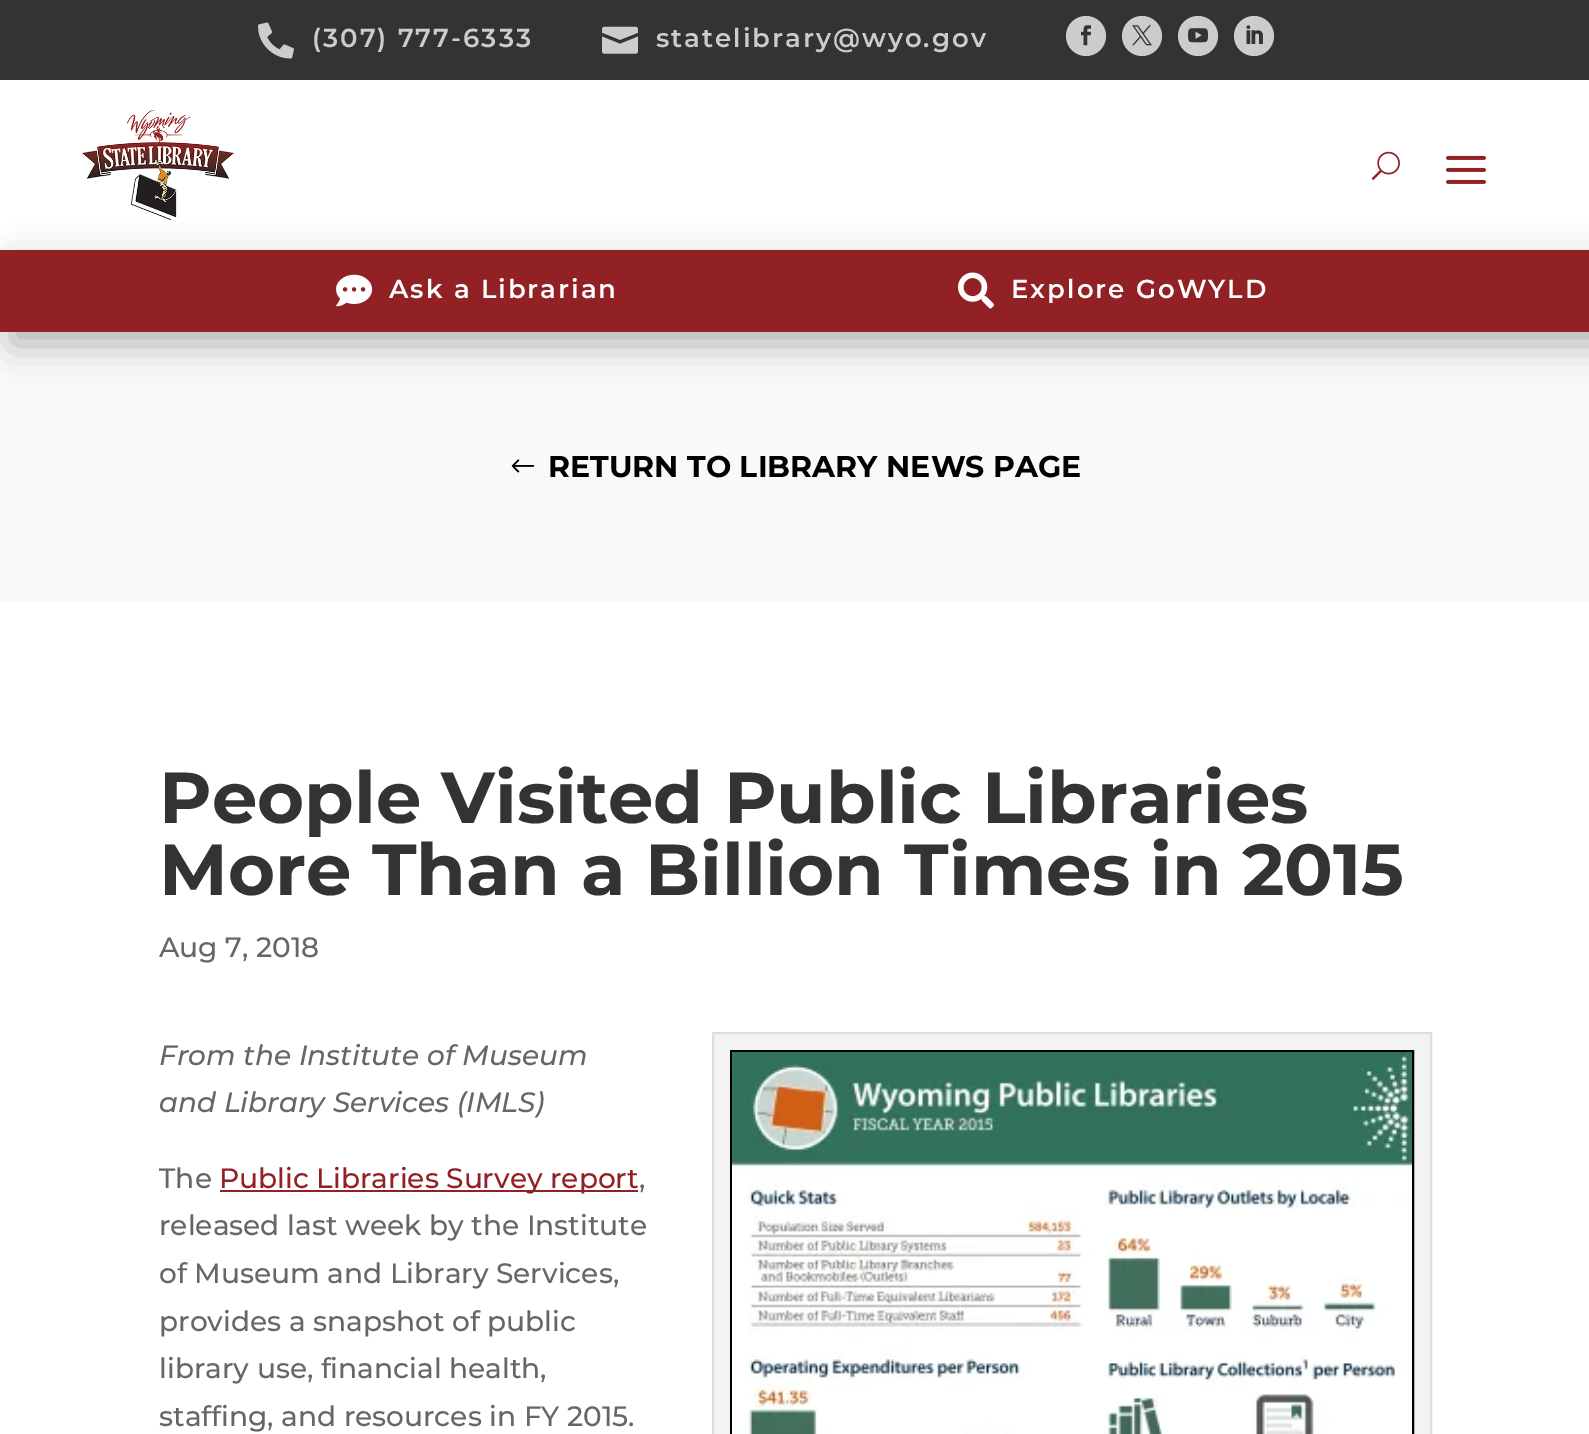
%!PS-Adobe-3.0
%%BoundingBox: 0 0 1589 1434
%%LanguageLevel: 3
%%Pages: 1
%%EndComments
%%BeginProlog
/m { moveto } bind def
/l { lineto } bind def
/h { closepath } bind def
/f { fill } bind def
/S { stroke } bind def
/q { gsave } bind def
/Q { grestore } bind def
/w { setlinewidth } bind def
/fn { [ exch dup neg 0 0 3 -1 roll 0 0 ] selectfont } def
/tx { moveto show } def
/bx { rectfill } def
/al { dup .setfillconstantalpha .setstrokeconstantalpha } def
/ci { newpath 0 360 arc closepath } def
/rr { 5 dict begin { /r /h /w /y /x } { exch def } forall
  x r add y moveto x w add y 2 copy h add r arct x w add y h add x 1 index r arct
  x y h add x y r arct x y 2 copy exch w add exch r arct closepath end } def
/sh { 12 dict begin { /a /b /q /h /w /y /x } { exch def } forall gsave /was 0 def
  9 -2 -9 { dup b mul 4 div /e exch def 1 sub .425 mul 2.718 exch exp 1 add a .99 .min exch div /now exch def
    1 1 now sub 1 was sub div sub al /was now def
    w h .min e 2 mul add 0 gt { x e sub y e sub w e 2 mul add h e 2 mul add
      q e add b .6 mul add w h .min 2 div e add .min 0 .max rr fill } if } for grestore end } def
/im { 5 dict begin { /h /w /y /x /name } { exch def } forall
  gsave x y translate w h scale
  w h 8 [w 0 0 h 0 0] name (r) file false 3 colorimage grestore end } def
%%EndProlog
%%BeginSetup
<< /PageSize [1589 1434] /PageUsesTransparency true >> setpagedevice
%%EndSetup
%%Page: 1 1
0 .pushpdf14devicefilter
0 1434 translate 1 -1 scale
4 setmiterlimit
1 setgray
0 0 1589 1434 bx
0.2 setgray
0 0 1589 80 bx
(image0.raw) 258 22 36 37 im
/Montserrat-SemiBold 26 fn
0.8 setgray
312 47 m 2 0 (\(307\) 777-6333) ashow
(image1.raw) 602 26 36 28 im
656 47 m 2 0 (statelibrary@wyo.gov) ashow
1086 36 20 ci f
(image2.raw) 1081 25 10 21 im
1142 36 20 ci f
(image3.raw) 1132 25 20 21 im
1198 36 20 ci f
(image4.raw) 1188 28 20 15 im
1254 36 20 ci f
(image5.raw) 1246 25 17 19 im
(image6.raw) 82 110 152 110 im
(image7.raw) 1371 151 29 29 im
(image8.raw) 1446 155 40 29 im
0.976 setgray
0 332 1589 270 bx
0 setgray
12 262 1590 82 0 18 0.3 sh
0.569 0.129 0.141 setrgbcolor
0 250 1589 82 bx
(image9.raw) 336 274 37 33 im
1 setgray
389 298 m 2 0 (Ask a Librarian) ashow
(image10.raw) 958 272 36 37 im
1011 298 m 2 0 (Explore GoWYLD) ashow
(image11.raw) 511 459 24 14 im
/Montserrat-Bold 30 fn
0 setgray
(RETURN TO LIBRARY NEWS PAGE) 548 477 tx
/Montserrat-Bold 72 fn
0.2 setgray
(People Visited Public Libraries) 159 823 tx
(More Than a Billion Times in 2015) 159 895 tx
/Montserrat-Medium 28 fn
0.4 setgray
(Aug 7, 2018) 159 957 tx
/Montserrat-MediumItalic 28 fn
(From the Institute of Museum) 159 1065 tx
(and Library Services \(IMLS\)) 159 1112 tx
0.953 setgray
713 1033 m 1431 1033 l 1431 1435 l 713 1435 l h q f Q
0.867 setgray
2 w
S
0 setgray
731 1051 682 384 rectstroke
(image12.raw) 732 1052 680 382 im
/Montserrat-Medium 28 fn
0.4 setgray
(The) 159 1188 tx
0.569 0.129 0.141 setrgbcolor
220 1190 418 2 bx
(Public Libraries Survey report) 219 1188 tx
0.4 setgray
(,) 639 1188 tx
(released last week by the Institute) 159 1235 tx
(of Museum and Library Services,) 159 1283 tx
(provides a snapshot of public) 159 1331 tx
(library use, financial health,) 159 1378 tx
(staffing, and resources in FY 2015.) 159 1426 tx
.poppdf14devicefilter showpage
%%EOF
